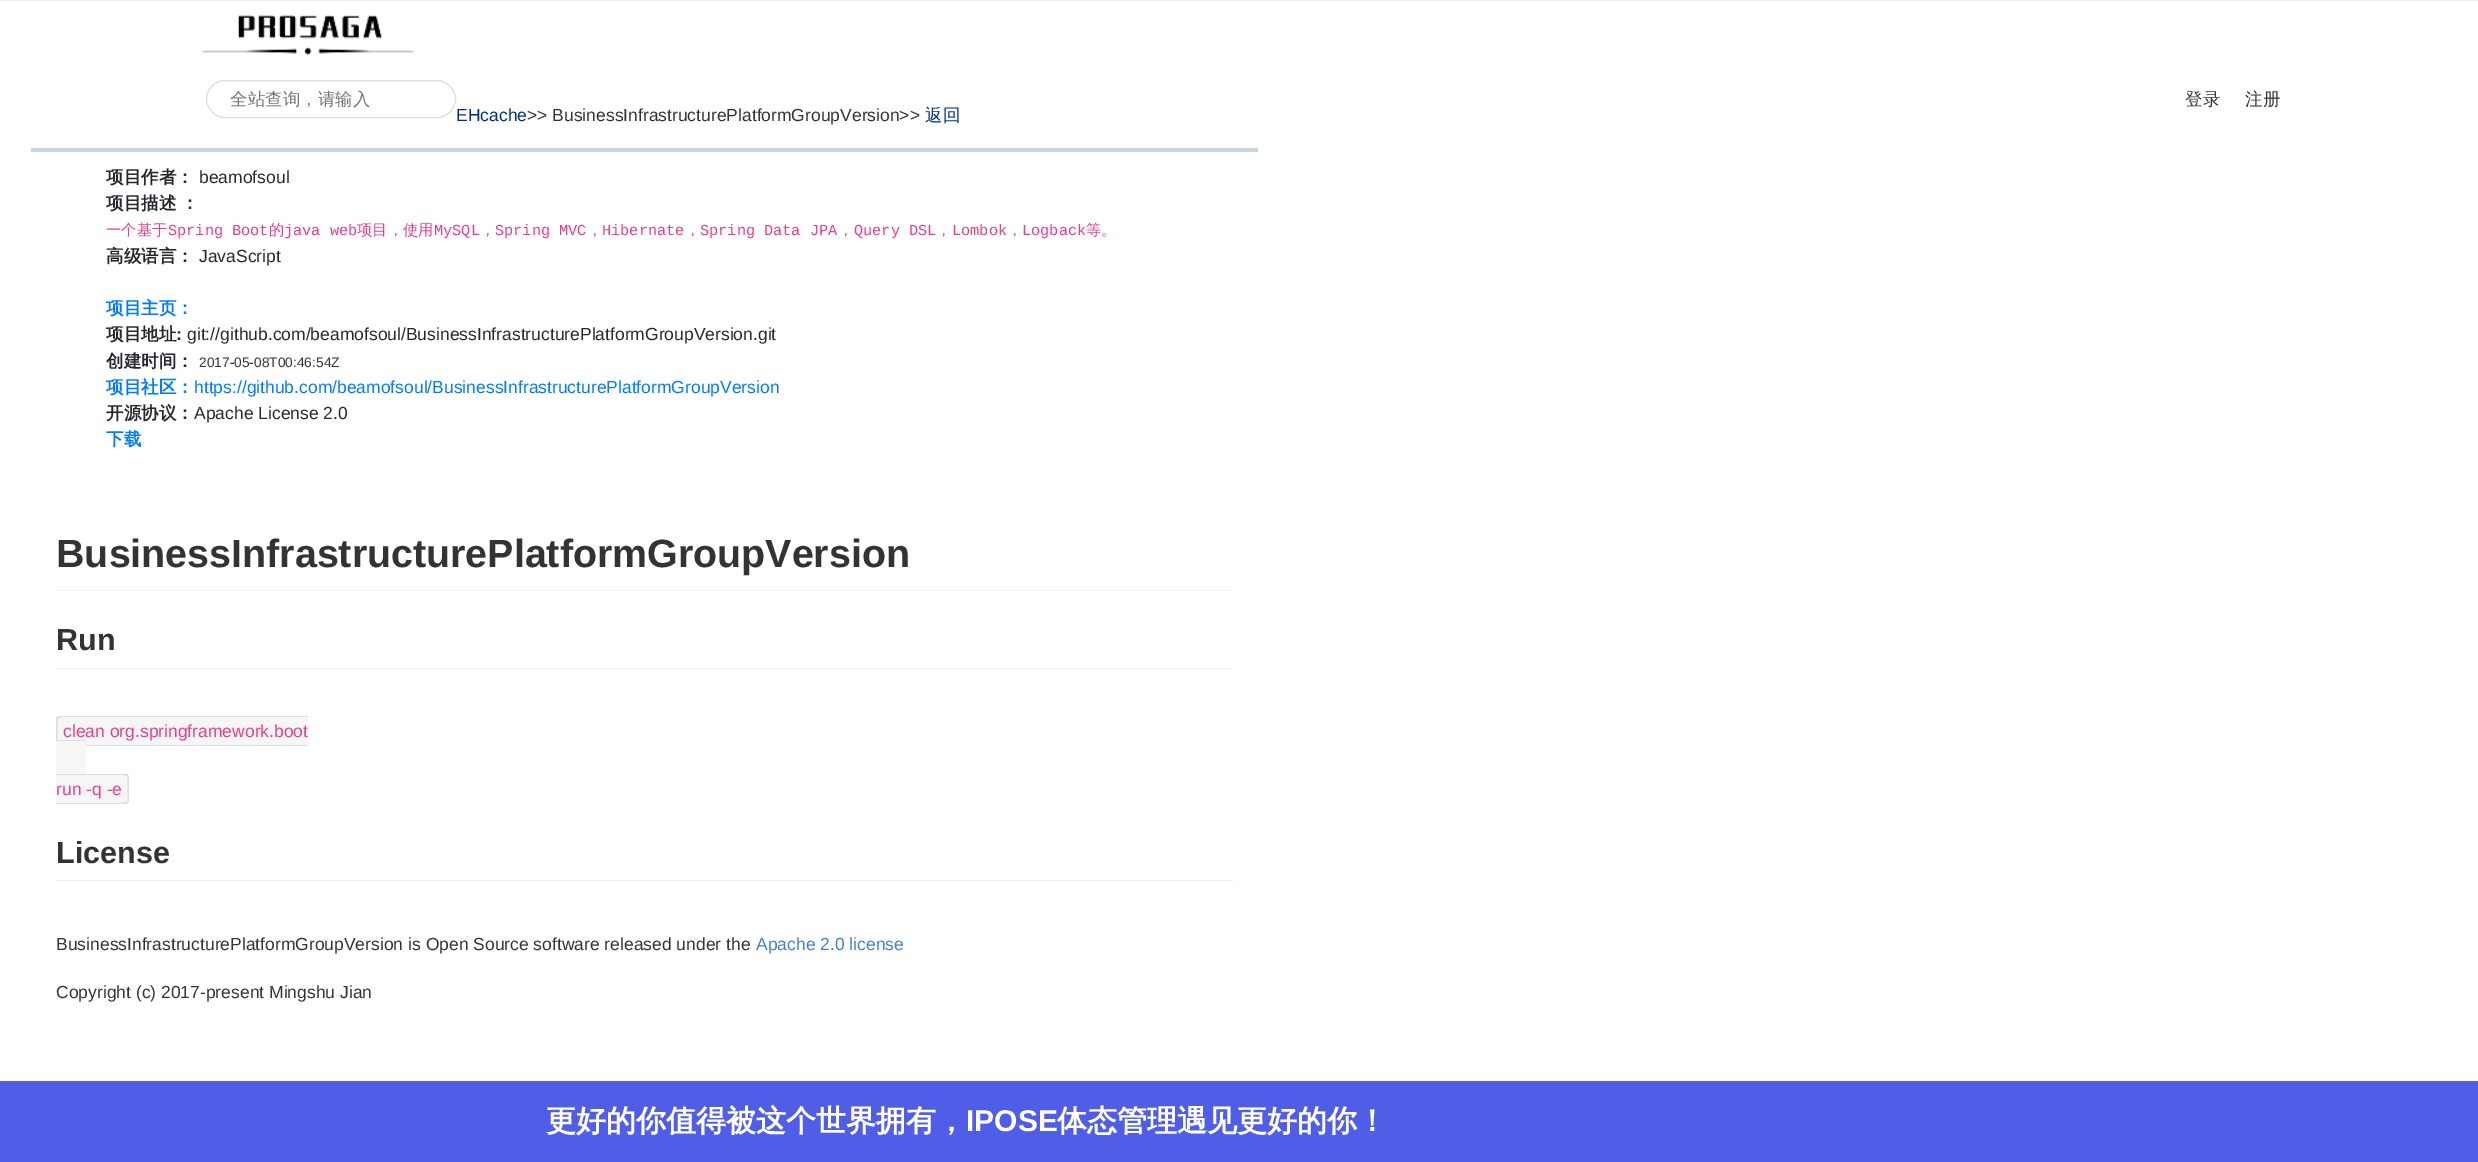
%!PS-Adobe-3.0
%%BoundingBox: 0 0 2478 1162
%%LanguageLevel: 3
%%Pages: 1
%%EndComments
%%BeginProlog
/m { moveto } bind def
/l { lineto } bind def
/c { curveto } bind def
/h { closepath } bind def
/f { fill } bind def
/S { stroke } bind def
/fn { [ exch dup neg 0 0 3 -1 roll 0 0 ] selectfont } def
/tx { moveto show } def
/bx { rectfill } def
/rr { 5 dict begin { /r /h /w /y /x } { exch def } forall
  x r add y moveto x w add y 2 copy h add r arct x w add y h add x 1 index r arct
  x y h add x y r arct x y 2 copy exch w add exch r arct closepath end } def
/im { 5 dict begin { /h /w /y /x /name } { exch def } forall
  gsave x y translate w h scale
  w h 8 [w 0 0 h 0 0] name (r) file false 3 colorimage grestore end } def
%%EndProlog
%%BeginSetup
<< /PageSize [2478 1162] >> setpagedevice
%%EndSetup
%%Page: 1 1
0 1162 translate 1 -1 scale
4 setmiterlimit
1 setgray
0 0 2478 1162 bx
0.933 setgray
0 0 2478 1 bx
(image0.raw) 202 15 212 41 im
0.867 setgray
206.5 80.5 249 37 18.5 rr S
/WenQuanYiZenHei-Medium 17.5 fn
0.459 setgray
(全站查询，请输入) 230 105 tx
0.2 setgray
(登录) 2185 105 tx
(注册) 2245 105 tx
0.761 0.835 0.89 setrgbcolor
31 148 1227 4 bx
/LiberationSans-Regular 17.5 fn
0 0.18 0.549 setrgbcolor
(EHcache) 456 121 tx
0.2 setgray
(>> BusinessInfrastructurePlatformGroupVersion>>) 527 121 tx
/WenQuanYiZenHei-Medium 17.5 fn
0 0.18 0.549 setrgbcolor
(返回) 925 121 tx
/WenQuanYiZenHei-Bold 17.5 fn
0.141 0.161 0.18 setrgbcolor
(项目作者：) 106 183 tx
/LiberationSans-Regular 17.5 fn
(beamofsoul) 199 183 tx
/WenQuanYiZenHei-Bold 17.5 fn
(项目描述 ：) 106 209 tx
/WenQuanYiZenHei-Medium 15.25 fn
0.91 0.243 0.549 setrgbcolor
(一个基于) 106 235 tx
/LiberationMono-Regular 15.25 fn
(Spring Boot) 168 235 tx
/WenQuanYiZenHei-Medium 15.25 fn
(的) 269 235 tx
/LiberationMono-Regular 15.25 fn
(java web) 284 235 tx
/WenQuanYiZenHei-Medium 15.25 fn
(项目，使用) 357 235 tx
/LiberationMono-Regular 15.25 fn
(MySQL) 434 235 tx
/WenQuanYiZenHei-Medium 15.25 fn
(，) 480 235 tx
/LiberationMono-Regular 15.25 fn
(Spring MVC) 495 235 tx
/WenQuanYiZenHei-Medium 15.25 fn
(，) 587 235 tx
/LiberationMono-Regular 15.25 fn
(Hibernate) 602 235 tx
/WenQuanYiZenHei-Medium 15.25 fn
(，) 685 235 tx
/LiberationMono-Regular 15.25 fn
(Spring Data JPA) 700 235 tx
/WenQuanYiZenHei-Medium 15.25 fn
(，) 838 235 tx
/LiberationMono-Regular 15.25 fn
(Query DSL) 854 235 tx
/WenQuanYiZenHei-Medium 15.25 fn
(，) 936 235 tx
/LiberationMono-Regular 15.25 fn
(Lombok) 952 235 tx
/WenQuanYiZenHei-Medium 15.25 fn
(，) 1007 235 tx
/LiberationMono-Regular 15.25 fn
(Logback) 1022 235 tx
/WenQuanYiZenHei-Medium 15.25 fn
(等。) 1086 235 tx
/WenQuanYiZenHei-Bold 17.5 fn
0.141 0.161 0.18 setrgbcolor
(高级语言：) 106 262 tx
/LiberationSans-Regular 17.5 fn
(JavaScript) 199 262 tx
/WenQuanYiZenHei-Bold 17.5 fn
0 0.482 1 setrgbcolor
(项目主页：) 106 314 tx
0.141 0.161 0.18 setrgbcolor
(项目地址) 106 340 tx
/LiberationSans-Bold 17.5 fn
(:) 176 340 tx
/LiberationSans-Regular 17.5 fn
(git://github.com/beamofsoul/BusinessInfrastructurePlatformGroupVersion.git) 187 340 tx
/WenQuanYiZenHei-Bold 17.5 fn
(创建时间：) 106 367 tx
/LiberationSans-Regular 13.75 fn
0.2 setgray
(2017-05-08T00:46:54Z) 199 367 tx
/WenQuanYiZenHei-Bold 17.5 fn
0 0.482 1 setrgbcolor
(项目社区：) 106 393 tx
/LiberationSans-Regular 17.5 fn
(https://github.com/beamofsoul/BusinessInfrastructurePlatformGroupVersion) 194 393 tx
/WenQuanYiZenHei-Bold 17.5 fn
0.141 0.161 0.18 setrgbcolor
(开源协议：) 106 419 tx
/LiberationSans-Regular 17.5 fn
(Apache License 2.0) 194 419 tx
/WenQuanYiZenHei-Bold 17.5 fn
0 0.482 1 setrgbcolor
(下载) 106 445 tx
0.933 setgray
56 590 1177 1 bx
/LiberationSans-Bold 39.4 fn
0.2 setgray
(BusinessInfrastructurePlatformGroupVersion) 56 567 tx
0.933 setgray
56 668 1177 1 bx
/LiberationSans-Bold 30.5 fn
0.2 setgray
(Run) 56 650 tx
0.965 setgray
63 717 245 28 bx
59.5 716 m 63 716 l 63 746 l 59.5 746 l 57.5 746 56 744.5 56 742.5 c 56 719.5 l 56 717.5 57.5 716 59.5 716 c h f
0.867 setgray
59.5 716 m 62.5 716 l 62.5 746 l 59.5 746 l 57.5 746 56 745 56 743 c 56 719.5 l 56 717.5 57.5 716 59.5 716 c h 59.5 717.5 m 62.5 717.5 l 62.5 745 l 59.5 745 l 58.5 745 57.5 744 57.5 743 c 57.5 719.5 l 57.5 718.5 58.5 717.5 59.5 717.5 c h eofill
56 740 30 1 bx
/LiberationSans-Regular 17.5 fn
0.91 0.243 0.549 setrgbcolor
(clean org.springframework.boot) 63 737 tx
0.867 setgray
63 716 245 1 bx
86 745 222 1 bx
0.965 setgray
56 741 30 33 bx
56 775 67 28 bx
0.91 0.243 0.549 setrgbcolor
(run -q -e) 56 795 tx
0.867 setgray
56 774 67 1 bx
56 803 67 1 bx
0.965 setgray
123 774 m 126 774 l 127.5 774 129 775.5 129 777 c 129 801 l 129 802.5 127.5 804 126 804 c 123 804 l h f
0.867 setgray
122.5 774 m 129 774 129 774.5 129 781 c 129 796.5 l 129 803 129 804 122.5 804 c h 122.5 775 m 128 775 127.5 775 127.5 781 c 127.5 796.5 l 127.5 802.5 128 802.5 122.5 802.5 c h eofill
0.933 setgray
56 880 1177 1 bx
/LiberationSans-Bold 30.5 fn
0.2 setgray
(License) 56 863 tx
/LiberationSans-Regular 17.5 fn
(BusinessInfrastructurePlatformGroupVersion is Open Source software released under the) 56 950 tx
0.255 0.514 0.769 setrgbcolor
(Apache 2.0 license) 756 950 tx
0.2 setgray
(Copyright \(c\) 2017-present Mingshu Jian) 56 998 tx
0.314 0.365 0.902 setrgbcolor
0 1081 2478 81 bx
/WenQuanYiZenHei-Bold 30 fn
1 setgray
(更好的你值得被这个世界拥有，) 546 1131 tx
/LiberationSans-Bold 30 fn
(IPOSE) 966 1131 tx
/WenQuanYiZenHei-Bold 30 fn
(体态管理遇见更好的你！) 1057 1131 tx
showpage
%%EOF
